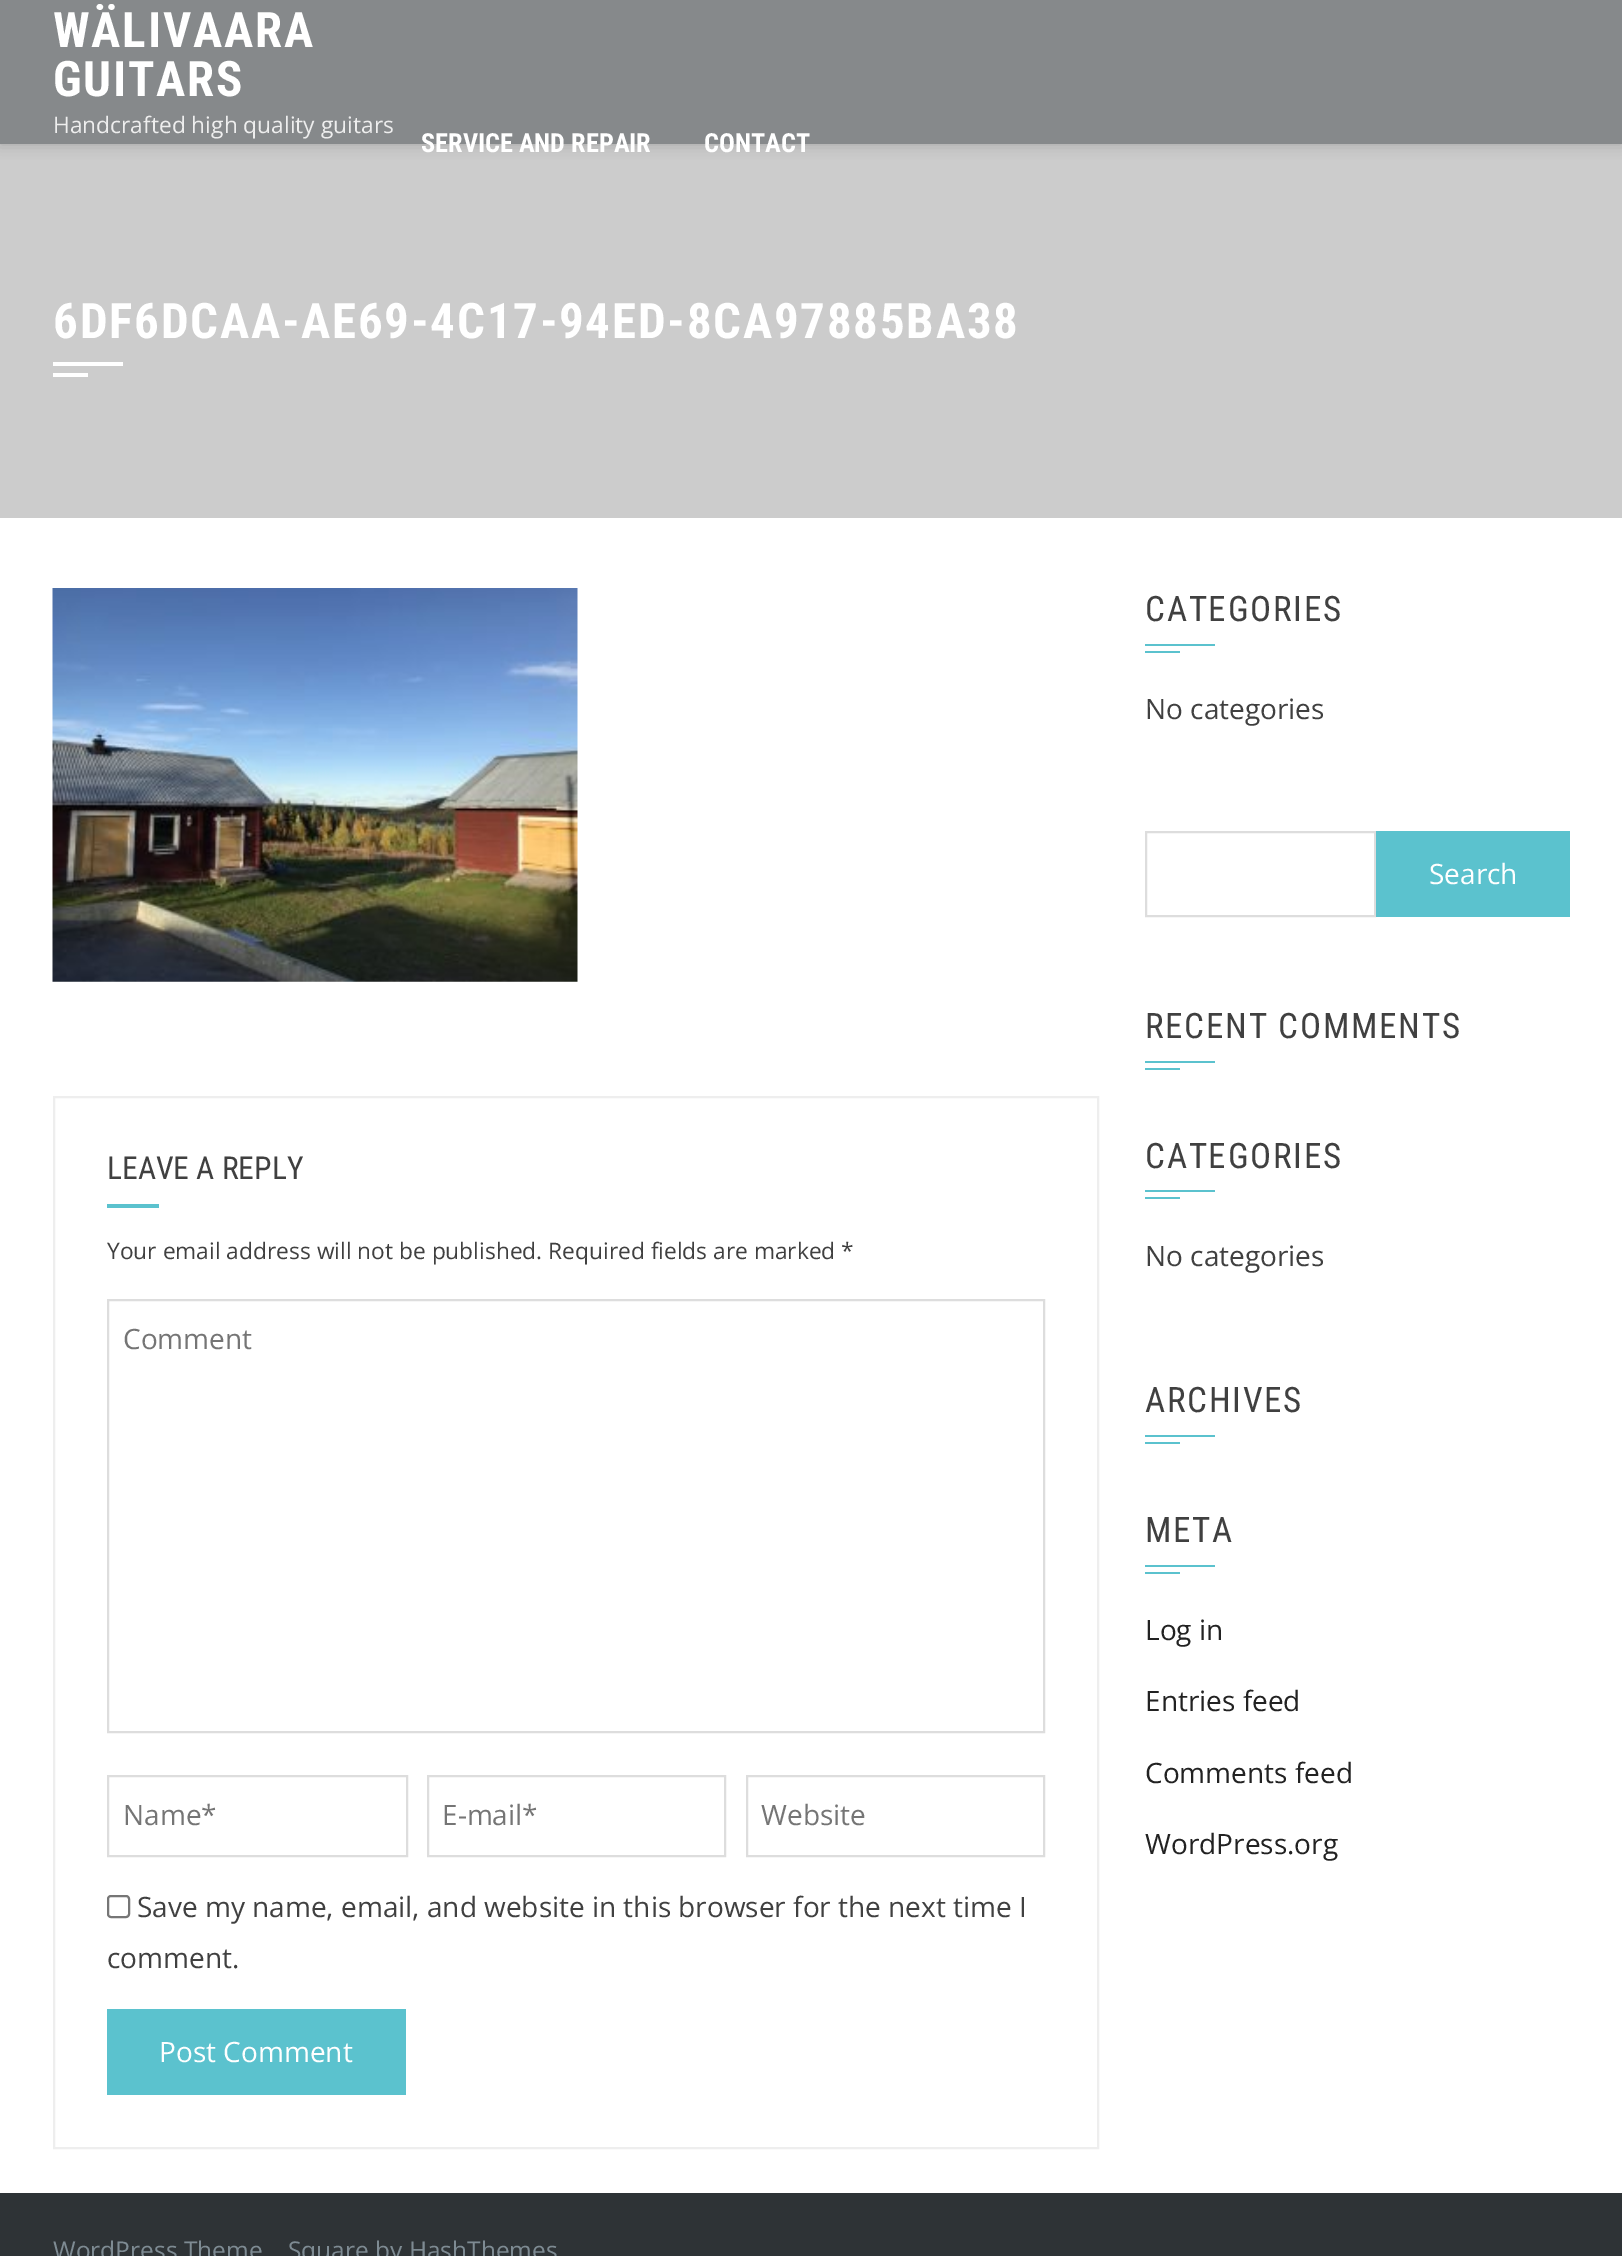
%!PS-Adobe-3.0
%%BoundingBox: 0 0 1622 2256
%%LanguageLevel: 3
%%Pages: 1
%%EndComments
%%BeginProlog
/m { moveto } bind def
/l { lineto } bind def
/h { closepath } bind def
/S { stroke } bind def
/q { gsave } bind def
/Q { grestore } bind def
/w { setlinewidth } bind def
/fn { [ exch dup neg 0 0 3 -1 roll 0 0 ] selectfont } def
/tx { moveto show } def
/bx { rectfill } def
/al { dup .setfillconstantalpha .setstrokeconstantalpha } def
/rr { 5 dict begin { /r /h /w /y /x } { exch def } forall
  x r add y moveto x w add y 2 copy h add r arct x w add y h add x 1 index r arct
  x y h add x y r arct x y 2 copy exch w add exch r arct closepath end } def
/sh { 12 dict begin { /a /b /q /h /w /y /x } { exch def } forall gsave /was 0 def
  9 -2 -9 { dup b mul 4 div /e exch def 1 sub .425 mul 2.718 exch exp 1 add a .99 .min exch div /now exch def
    1 1 now sub 1 was sub div sub al /was now def
    w h .min e 2 mul add 0 gt { x e sub y e sub w e 2 mul add h e 2 mul add
      q e add b .6 mul add w h .min 2 div e add .min 0 .max rr fill } if } for grestore end } def
/im { 5 dict begin { /h /w /y /x /name } { exch def } forall
  gsave x y translate w h scale
  w h 8 [w 0 0 h 0 0] name (r) file false 3 colorimage grestore end } def
%%EndProlog
%%BeginSetup
<< /PageSize [1622 2256] /PageUsesTransparency true >> setpagedevice
%%EndSetup
%%Page: 1 1
0 .pushpdf14devicefilter
0 2256 translate 1 -1 scale
4 setmiterlimit
1 setgray
0 0 1622 2256 bx
0.8 setgray
0 0 1622 518 bx
q
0 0 m 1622 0 l 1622 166 l 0 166 l h 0 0 m 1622 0 l 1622 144 l 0 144 l h eoclip newpath
0 setgray
0 0 1622 144 0 7 0.2 sh
Q
0.4 al
0.118 0.141 0.165 setrgbcolor
0 0 1622 144 bx
/RobotoCondensed-Bold 49 fn
1 al
1 setgray
53 47 m 1.75 0 (WÄLIVAARA) ashow
53 96 m 1.75 0 (GUITARS) ashow
/OpenSans-Regular 22.75 fn
0.933 setgray
(Handcrafted high quality guitars) 53 133 tx
/RobotoCondensed-Bold 26.25 fn
1 setgray
(SERVICE AND REPAIR) 421 152 tx
(CONTACT) 704 152 tx
/RobotoCondensed-Bold 49 fn
53 338 m 1.75 0 (6DF6DCAA-AE69-4C17-94ED-8CA97885BA38) ashow
53 362 70 4 bx
53 373 35 4 bx
(image0.raw) 52 588 526 394 im
0.933 setgray
2 w
54 1097 1044 1051 rectstroke
/RobotoCondensed-Regular 31.5 fn
0.251 setgray
(LEAVE A REPLY) 107 1179 tx
0.357 0.761 0.808 setrgbcolor
107 1204 52 4 bx
/OpenSans-Regular 22.75 fn
0.251 setgray
(Your email address will not be published. Required fields are marked *) 107 1259 tx
0.867 setgray
108 1300 936 432 rectstroke
/OpenSans-Regular 28 fn
0.459 setgray
(Comment) 123 1349 tx
0.867 setgray
108 1776 299 80 rectstroke
0.459 setgray
(Name*) 123 1825 tx
0.867 setgray
428 1776 297 80 rectstroke
0.459 setgray
(E-mail*) 442 1825 tx
0.867 setgray
747 1776 297 80 rectstroke
0.459 setgray
(Website) 761 1825 tx
0.463 setgray
108 1896 21 21 3 rr S
0.251 setgray
(Save my name, email, and website in this browser for the next time I) 137 1917 tx
(comment.) 107 1968 tx
0.357 0.761 0.808 setrgbcolor
107 2009 299 86 bx
1 setgray
(Post Comment) 159 2062 tx
/RobotoCondensed-Regular 35 fn
0.251 setgray
1145 621 m 1.75 0 (CATEGORIES) ashow
0.357 0.761 0.808 setrgbcolor
1145 644 70 2 bx
1145 651 35 2 bx
/OpenSans-Regular 28 fn
0.251 setgray
(No categories) 1145 719 tx
0.867 setgray
1146 832 229 84 rectstroke
0.357 0.761 0.808 setrgbcolor
1376 831 194 86 bx
1 setgray
(Search) 1429 884 tx
/RobotoCondensed-Regular 35 fn
0.251 setgray
1145 1038 m 1.75 0 (RECENT COMMENTS) ashow
0.357 0.761 0.808 setrgbcolor
1145 1061 70 2 bx
1145 1068 35 2 bx
0.251 setgray
1145 1168 m 1.75 0 (CATEGORIES) ashow
0.357 0.761 0.808 setrgbcolor
1145 1190 70 2 bx
1145 1197 35 2 bx
/OpenSans-Regular 28 fn
0.251 setgray
(No categories) 1145 1266 tx
/RobotoCondensed-Regular 35 fn
1145 1412 m 1.75 0 (ARCHIVES) ashow
0.357 0.761 0.808 setrgbcolor
1145 1435 70 2 bx
1145 1442 35 2 bx
0.251 setgray
1145 1542 m 1.75 0 (META) ashow
0.357 0.761 0.808 setrgbcolor
1145 1565 70 2 bx
1145 1572 35 2 bx
/OpenSans-Regular 28 fn
0.133 setgray
(Log in) 1145 1640 tx
(Entries feed) 1145 1711 tx
(Comments feed) 1145 1783 tx
(WordPress.org) 1145 1854 tx
0.18 0.2 0.212 setrgbcolor
0 2193 1622 63 bx
/OpenSans-Regular 24.5 fn
0.494 0.545 0.576 setrgbcolor
(WordPress Theme) 53 2259 tx
(Square by HashThemes) 288 2259 tx
.poppdf14devicefilter showpage
%%EOF
